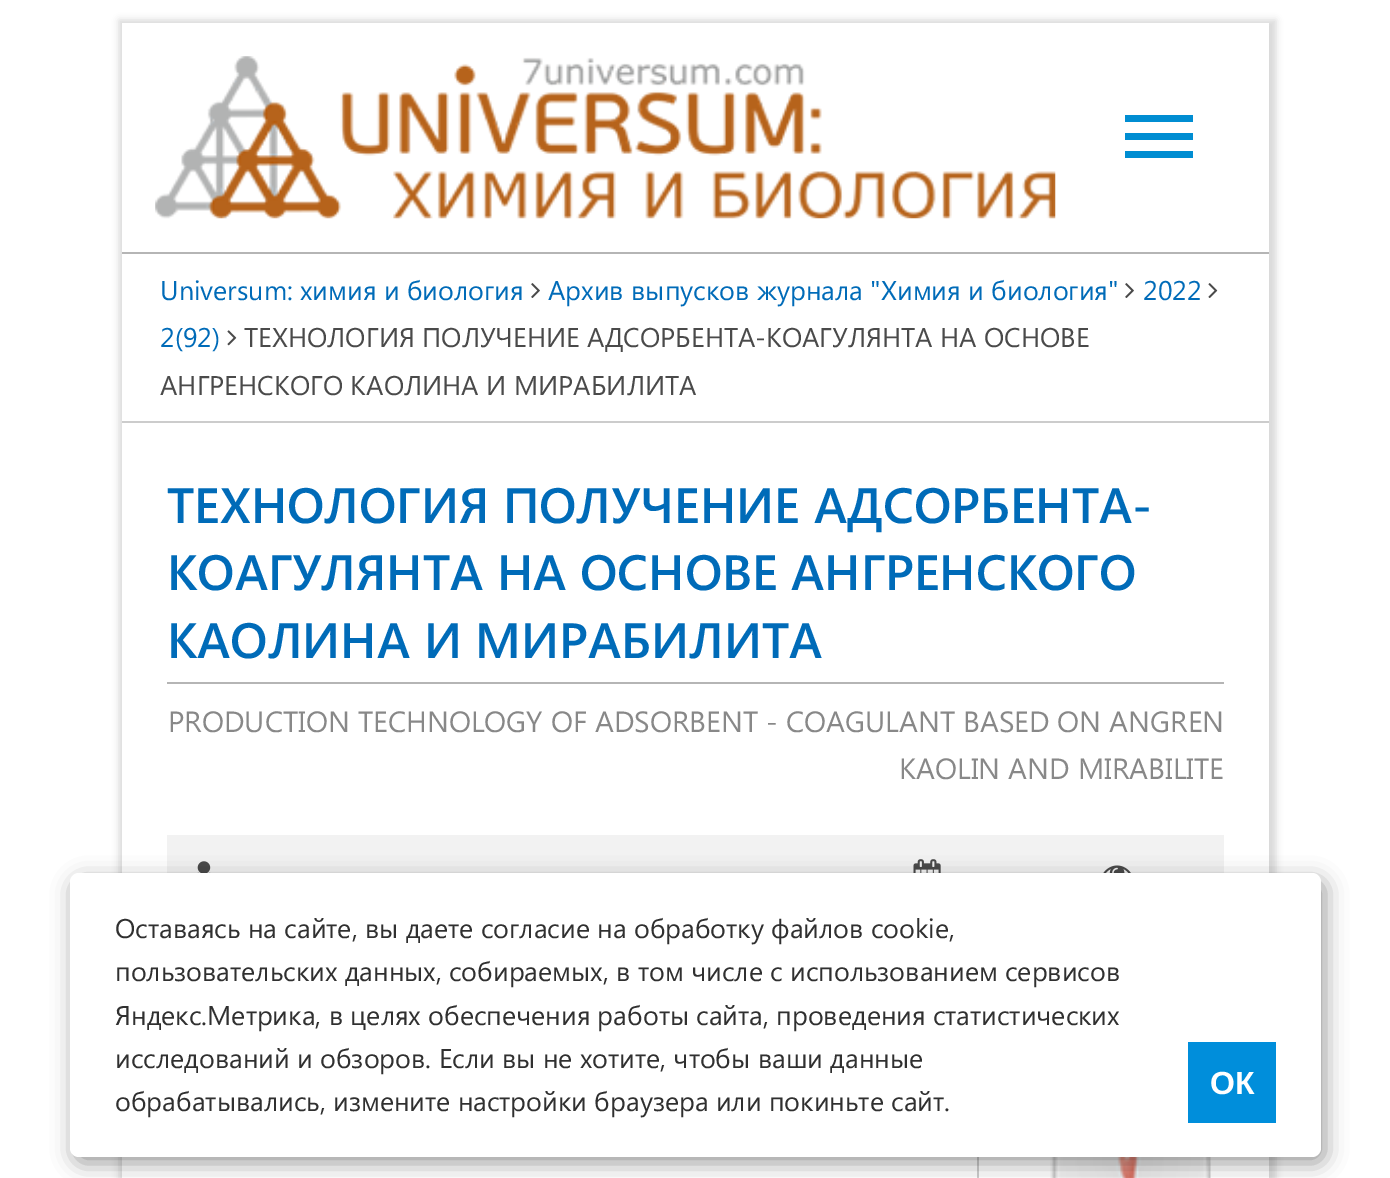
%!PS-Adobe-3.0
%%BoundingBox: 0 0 1390 1178
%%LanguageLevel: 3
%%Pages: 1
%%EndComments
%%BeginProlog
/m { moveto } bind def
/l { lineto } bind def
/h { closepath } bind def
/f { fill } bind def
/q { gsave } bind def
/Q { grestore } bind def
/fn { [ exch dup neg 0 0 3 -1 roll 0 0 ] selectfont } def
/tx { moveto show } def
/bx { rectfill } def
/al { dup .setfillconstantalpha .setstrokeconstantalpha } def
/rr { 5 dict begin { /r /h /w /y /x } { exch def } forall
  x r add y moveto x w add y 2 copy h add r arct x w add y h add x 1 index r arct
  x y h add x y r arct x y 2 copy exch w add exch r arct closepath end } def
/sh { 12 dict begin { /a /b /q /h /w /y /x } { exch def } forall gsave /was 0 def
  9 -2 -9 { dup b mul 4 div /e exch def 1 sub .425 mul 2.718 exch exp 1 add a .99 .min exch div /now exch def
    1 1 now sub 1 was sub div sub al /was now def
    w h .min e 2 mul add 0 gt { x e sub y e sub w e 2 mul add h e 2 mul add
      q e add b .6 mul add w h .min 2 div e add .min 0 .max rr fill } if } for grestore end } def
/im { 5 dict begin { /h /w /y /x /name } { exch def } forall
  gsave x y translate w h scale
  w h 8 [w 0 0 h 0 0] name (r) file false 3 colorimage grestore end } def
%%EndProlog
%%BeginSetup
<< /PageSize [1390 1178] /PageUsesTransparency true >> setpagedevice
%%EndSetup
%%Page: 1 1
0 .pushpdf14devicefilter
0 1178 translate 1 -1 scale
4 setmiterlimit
1 setgray
0 0 1390 1178 bx
q
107 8 m 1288 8 l 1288 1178 l 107 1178 l h 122 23 m 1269 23 l 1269 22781 l 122 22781 l h eoclip newpath
0 setgray
119 20 1157 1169 0 3.5 0.15 sh
Q
0.71 setgray
122 252 1147 2 bx
(image0.raw) 155 56 901 163 im
0 0.553 0.824 setrgbcolor
1125 115 68 7 bx
1125 133 68 7 bx
1125 151 68 7 bx
0.8 setgray
122 421 1147 2 bx
/SegoeUI-Regular 27 fn
0 0.42 0.722 setrgbcolor
(Universum: химия и биология) 160 300 tx
(image1.raw) 531 283 9 15 im
(Архив выпусков журнала "Химия и биология") 548 300 tx
(image1.raw) 1125 283 9 15 im
(2022) 1143 300 tx
(image2.raw) 1208 283 10 15 im
(2\(92\)) 160 347 tx
(image3.raw) 227 330 10 16 im
0.29 setgray
(ТЕХНОЛОГИЯ ПОЛУЧЕНИЕ АДСОРБЕНТА-КОАГУЛЯНТА НА ОСНОВЕ) 244 347 tx
(АНГРЕНСКОГО КАОЛИНА И МИРАБИЛИТА) 160 395 tx
0.71 setgray
167 682 1057 2 bx
/SegoeUI-SemiBold 49.5 fn
0 0.42 0.722 setrgbcolor
(ТЕХНОЛОГИЯ ПОЛУЧЕНИЕ АДСОРБЕНТА-) 167 523 tx
(КОАГУЛЯНТА НА ОСНОВЕ АНГРЕНСКОГО) 167 590 tx
(КАОЛИНА И МИРАБИЛИТА) 167 658 tx
/SegoeUI-Regular 29.25 fn
0.533 setgray
(PRODUCTION TECHNOLOGY OF ADSORBENT - COAGULANT BASED ON ANGREN) 168 732 tx
(KAOLIN AND MIRABILITE) 899 779 tx
0.949 setgray
167 835 1057 38 bx
(image4.raw) 197 861 14 12 im
(image5.raw) 913 859 28 14 im
(image6.raw) 1103 865 28 8 im
0.8 setgray
977 1157 2 21 bx
(image7.raw) 1050 1157 161 21 im
0 setgray
74 880 1251 283 9 11 0.4 sh
1 setgray
70 873 1251 284 9 rr f
/SegoeUI-Regular 27 fn
0.188 setgray
(Оставаясь на сайте, вы даете согласие на обработку файлов cookie,) 115 938 tx
(пользовательских данных, собираемых, в том числе с использованием сервисов) 115 981 tx
(Яндекс.Метрика, в целях обеспечения работы сайта, проведения статистических) 115 1025 tx
(исследований и обзоров. Если вы не хотите, чтобы ваши данные) 115 1068 tx
(обрабатывались, измените настройки браузера или покиньте сайт.) 115 1111 tx
0 0.557 0.859 setrgbcolor
1188 1042 88 81 bx
/LiberationSans-Bold 32 fn
1 setgray
(ОК) 1210 1094 tx
.poppdf14devicefilter showpage
%%EOF
